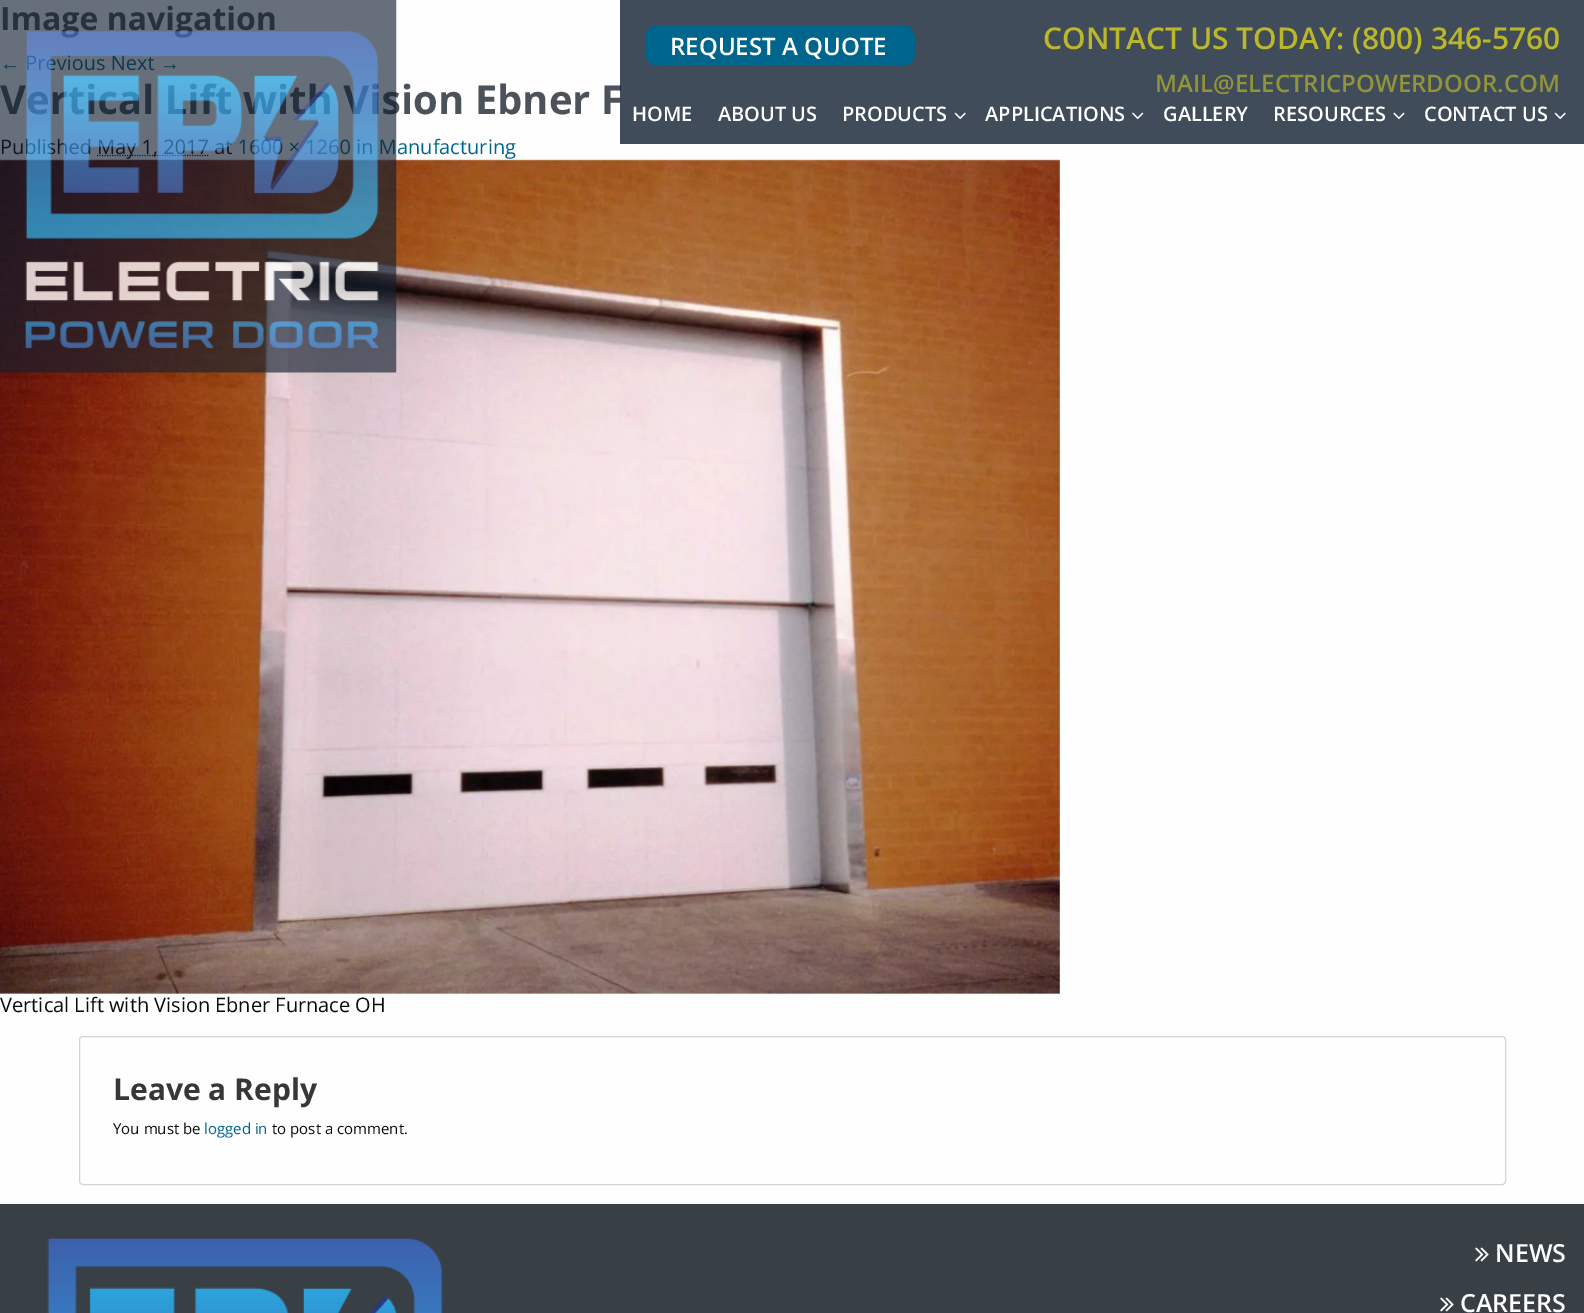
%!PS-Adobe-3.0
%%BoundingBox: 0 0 1584 1313
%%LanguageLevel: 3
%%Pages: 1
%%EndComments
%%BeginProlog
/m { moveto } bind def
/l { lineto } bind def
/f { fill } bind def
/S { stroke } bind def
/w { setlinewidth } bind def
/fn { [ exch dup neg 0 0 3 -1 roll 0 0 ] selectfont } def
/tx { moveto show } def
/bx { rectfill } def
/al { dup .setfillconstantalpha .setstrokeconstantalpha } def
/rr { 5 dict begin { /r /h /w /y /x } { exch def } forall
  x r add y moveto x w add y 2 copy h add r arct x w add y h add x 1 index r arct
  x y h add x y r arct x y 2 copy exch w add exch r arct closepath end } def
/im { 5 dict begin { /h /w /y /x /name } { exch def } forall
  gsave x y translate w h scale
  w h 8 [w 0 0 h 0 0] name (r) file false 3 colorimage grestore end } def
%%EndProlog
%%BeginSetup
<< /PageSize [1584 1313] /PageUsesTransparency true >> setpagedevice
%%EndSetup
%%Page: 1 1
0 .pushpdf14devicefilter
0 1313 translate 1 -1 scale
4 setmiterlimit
0.996 setgray
0 0 1584 1313 bx
/OpenSans-Bold 32 fn
0.298 0.322 0.353 setrgbcolor
(Image navigation) 0 30 tx
/LiberationSans-Regular 20 fn
0 0.396 0.553 setrgbcolor
(←) 0 70 tx
/OpenSans-Regular 20 fn
(vious Next) 57 70 tx
/LiberationSans-Regular 20 fn
(→) 160 70 tx
/OpenSans-Bold 40 fn
0.298 0.322 0.353 setrgbcolor
(V) 0 114 tx
(l) 142 114 tx
(sion Ebner F) 381 114 tx
/OpenSans-Regular 20 fn
0.039 setgray
(Pu) 0 154 tx
1.2 w
[1.25 1.25] 0 setdash
97 155.5 m 209 155.5 l S
(1,) 141 154 tx
97.5 160.5 m 209 160.5 l S
0 0.396 0.553 setrgbcolor
(1) 238 154 tx
(0) 339 154 tx
(Manufacturing) 379 154 tx
(image0.raw) 0 159 1060 835 im
0.039 setgray
(Vertical Lift with Vision Ebner Furnace OH) 0 1012 tx
0.827 setgray
1 w
[] 0 setdash
79.5 1036.5 1426 148 3.5 rr S
/OpenSans-Bold 30 fn
0.216 setgray
(Leave a Reply) 113 1100 tx
/OpenSans-Regular 15 fn
0.039 setgray
(You must be) 113 1134 tx
0 0.396 0.553 setrgbcolor
(logged in) 204 1134 tx
0.039 setgray
(to post a comment.) 272 1134 tx
(image1.raw) 0 0 397 373 im
0.8 al
0.067 0.125 0.188 setrgbcolor
620 0 964 144 bx
1 al
0 0.396 0.553 setrgbcolor
645 25 270 41 13 rr f
/OpenSans-SemiBold 24 fn
1 setgray
(REQUEST A QUOTE) 670 55 tx
/OpenSans-SemiBold 30 fn
0.729 0.718 0.169 setrgbcolor
(CONTACT US TODAY: \(800\) 346-5760) 1043 49 tx
/OpenSans-SemiBold 24 fn
0.573 0.58 0.227 setrgbcolor
(MAIL@ELECTRICPOWERDOOR.COM) 1155 92 tx
/OpenSans-SemiBold 20 fn
1 setgray
(HOME) 632 121 tx
(ABOUT US) 718 121 tx
(PRODUCTS) 842 121 tx
(image2.raw) 954 112 12 8 im
(APPLICATIONS) 985 121 tx
(image3.raw) 1132 112 12 8 im
(GALLERY) 1163 121 tx
(RESOURCES) 1273 121 tx
(image4.raw) 1393 112 12 8 im
(CONTACT US) 1424 121 tx
(image2.raw) 1554 112 12 8 im
0.22 0.251 0.271 setrgbcolor
0 1204 1584 109 bx
(image5.raw) 47 1238 396 75 im
(image6.raw) 1475 1247 14 15 im
/OpenSans-SemiBold 25 fn
1 setgray
(NEWS) 1495 1262 tx
(image6.raw) 1440 1297 14 15 im
(CAREERS) 1460 1312 tx
.poppdf14devicefilter showpage
%%EOF
